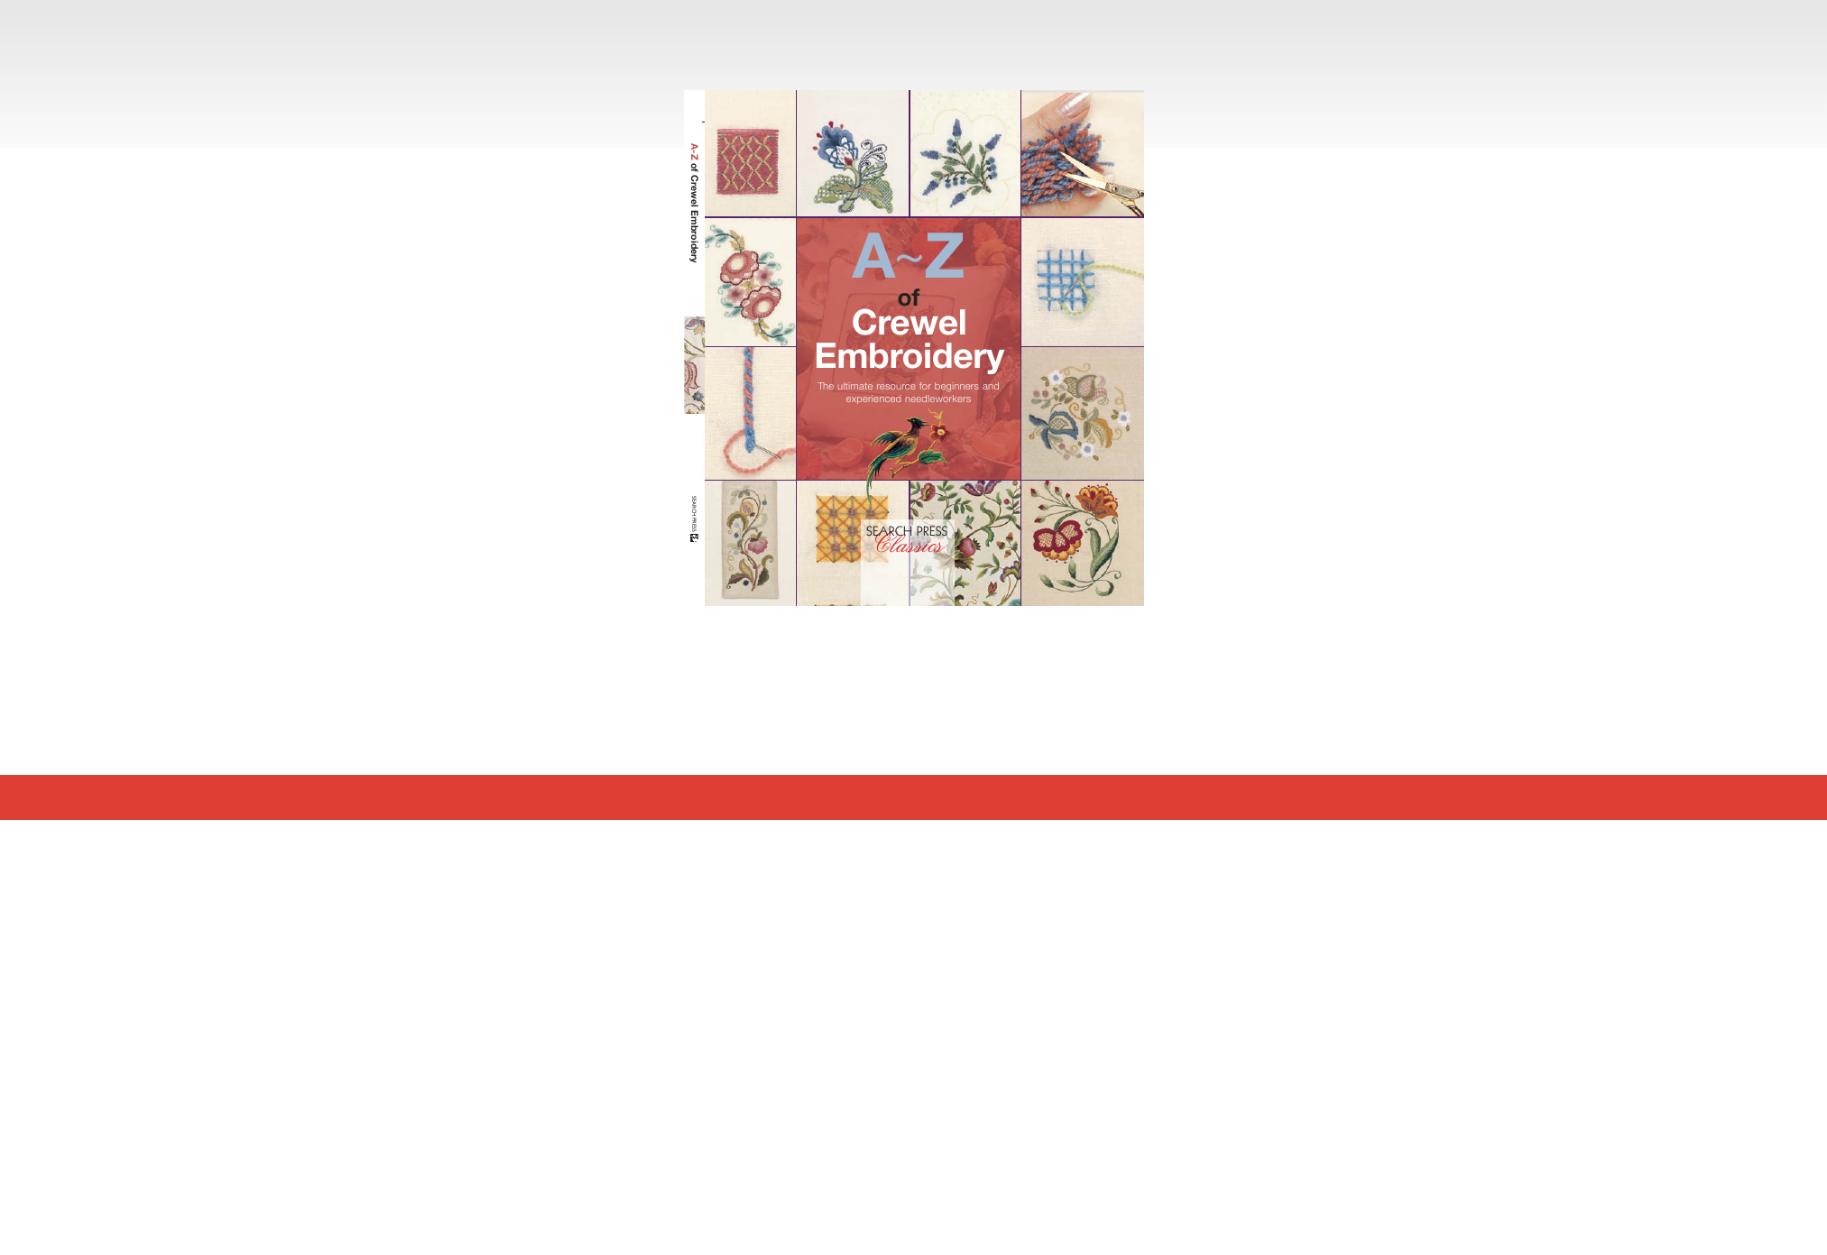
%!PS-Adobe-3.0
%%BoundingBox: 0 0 1827 1255
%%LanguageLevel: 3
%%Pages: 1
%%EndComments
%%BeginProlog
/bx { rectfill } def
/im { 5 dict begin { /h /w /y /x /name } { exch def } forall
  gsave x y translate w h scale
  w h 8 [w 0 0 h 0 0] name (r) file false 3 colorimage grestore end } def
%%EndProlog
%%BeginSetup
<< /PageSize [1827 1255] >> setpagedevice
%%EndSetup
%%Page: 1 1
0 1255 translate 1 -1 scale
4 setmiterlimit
1 setgray
0 0 1827 1255 bx
(image0.raw) 0 0 1827 148 im
(image1.raw) 684 90 460 516 im
0.875 0.243 0.208 setrgbcolor
0 775 1827 45 bx
showpage
%%EOF
